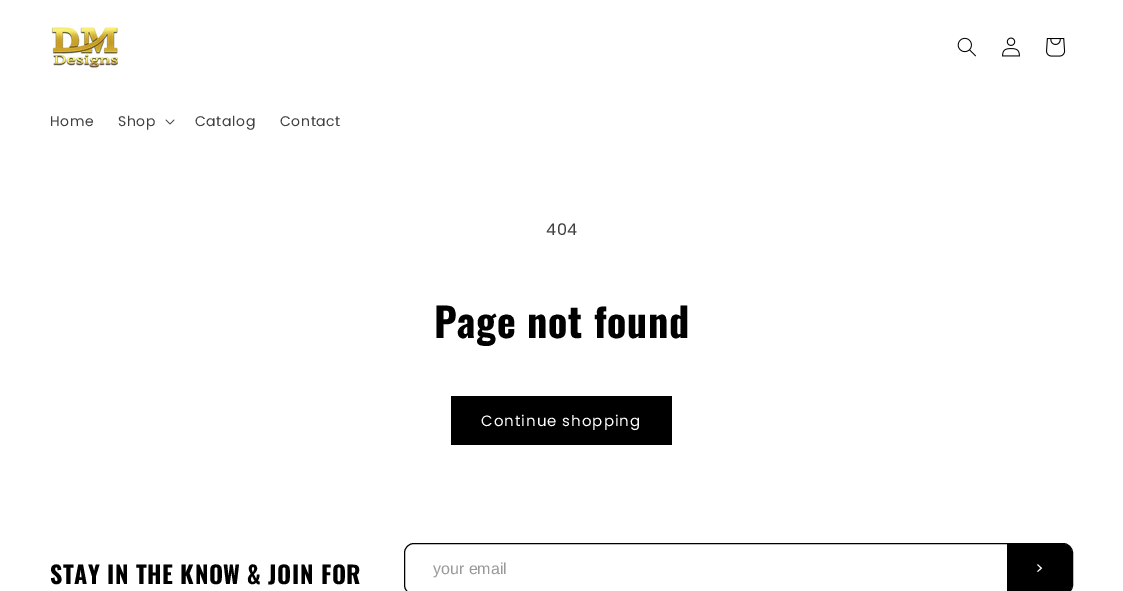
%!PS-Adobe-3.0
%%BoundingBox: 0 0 1123 591
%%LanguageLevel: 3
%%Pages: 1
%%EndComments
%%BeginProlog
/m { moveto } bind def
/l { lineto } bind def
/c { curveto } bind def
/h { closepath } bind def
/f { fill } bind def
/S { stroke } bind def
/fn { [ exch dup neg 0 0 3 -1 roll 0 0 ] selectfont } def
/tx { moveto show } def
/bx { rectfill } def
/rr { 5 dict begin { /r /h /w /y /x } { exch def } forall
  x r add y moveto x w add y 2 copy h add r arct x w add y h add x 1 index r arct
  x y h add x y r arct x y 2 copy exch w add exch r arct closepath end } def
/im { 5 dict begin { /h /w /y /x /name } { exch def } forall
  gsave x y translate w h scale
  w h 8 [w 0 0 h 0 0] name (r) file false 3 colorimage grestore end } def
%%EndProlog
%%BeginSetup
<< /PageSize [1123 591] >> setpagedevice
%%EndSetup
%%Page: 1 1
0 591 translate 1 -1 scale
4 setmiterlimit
1 setgray
0 0 1123 591 bx
(image0.raw) 51 27 67 41 im
(image1.raw) 957 37 19 20 im
(image2.raw) 1002 37 18 20 im
(image3.raw) 1046 38 20 19 im
/Poppins-Regular 14 fn
0.251 setgray
50 126 m 0.6 0 (Home) ashow
118 126 m 0.6 0 (Shop) ashow
(image4.raw) 165 119 10 6 im
195 126 m 0.6 0 (Catalog) ashow
280 126 m 0.6 0 (Contact) ashow
/Poppins-Regular 16 fn
546 235 m 0.6 0 (404) ashow
/Oswald-Bold 40 fn
0 setgray
434 338 m 0.6 0 (Page not found) ashow
451 396 221 49 bx
/Poppins-Regular 15 fn
1 setgray
481 426 m 1 0 (Continue shopping) ashow
/Oswald-Bold 24 fn
0 setgray
50 584 m 0.6 0 (STAY IN THE KNOW & JOIN FOR) ashow
404.5 543.5 668 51 9.5 rr S
/LiberationSans-Regular 16 fn
0.6 setgray
(your email) 433 574 tx
0 setgray
1007 544 m 1063 544 l 1068 544 1072 548 1072 553 c 1072 585 l 1072 590 1068 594 1063 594 c 1007 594 l h f
/Poppins-Regular 16 fn
1 setgray
(>) 1035 574 tx
showpage
%%EOF
